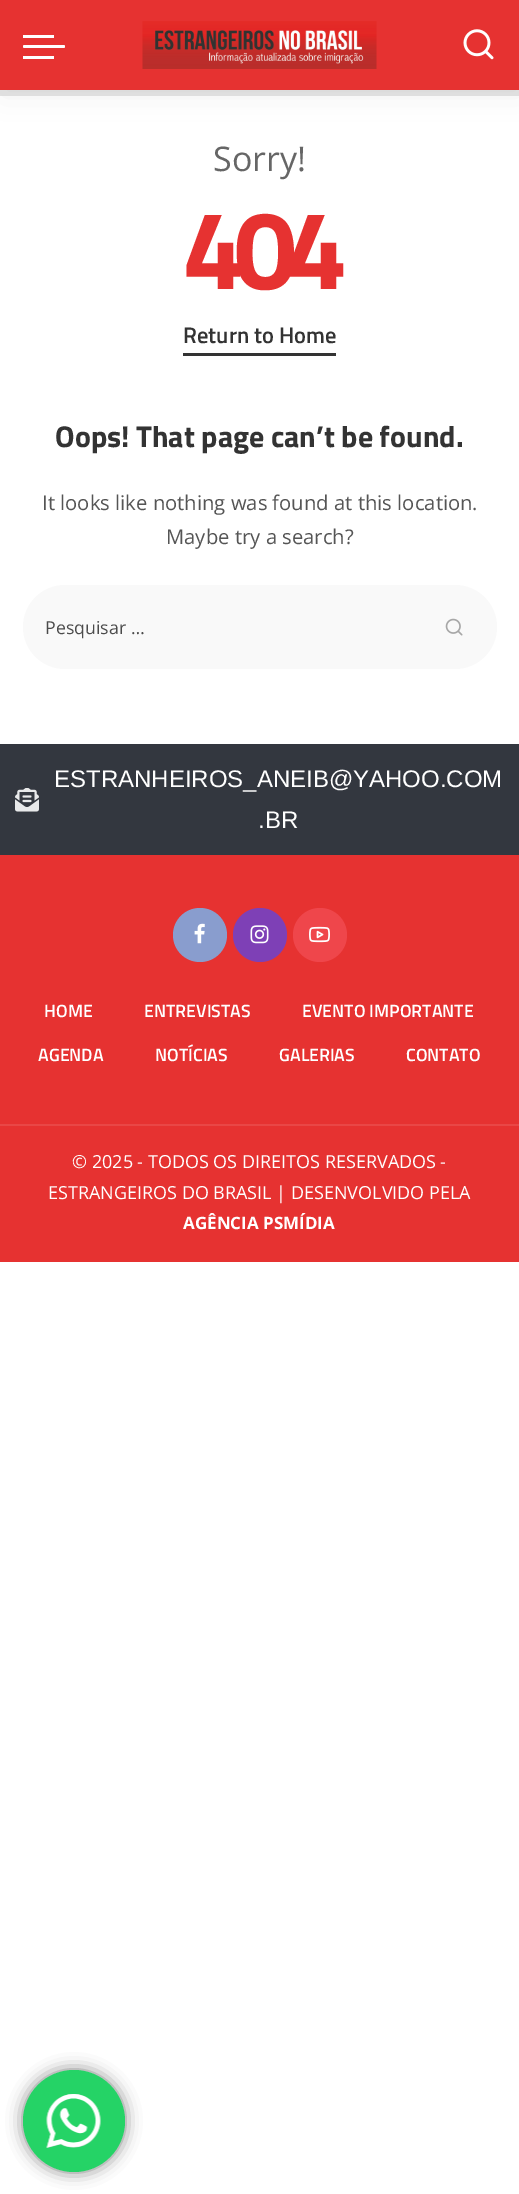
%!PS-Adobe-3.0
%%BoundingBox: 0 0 519 2194
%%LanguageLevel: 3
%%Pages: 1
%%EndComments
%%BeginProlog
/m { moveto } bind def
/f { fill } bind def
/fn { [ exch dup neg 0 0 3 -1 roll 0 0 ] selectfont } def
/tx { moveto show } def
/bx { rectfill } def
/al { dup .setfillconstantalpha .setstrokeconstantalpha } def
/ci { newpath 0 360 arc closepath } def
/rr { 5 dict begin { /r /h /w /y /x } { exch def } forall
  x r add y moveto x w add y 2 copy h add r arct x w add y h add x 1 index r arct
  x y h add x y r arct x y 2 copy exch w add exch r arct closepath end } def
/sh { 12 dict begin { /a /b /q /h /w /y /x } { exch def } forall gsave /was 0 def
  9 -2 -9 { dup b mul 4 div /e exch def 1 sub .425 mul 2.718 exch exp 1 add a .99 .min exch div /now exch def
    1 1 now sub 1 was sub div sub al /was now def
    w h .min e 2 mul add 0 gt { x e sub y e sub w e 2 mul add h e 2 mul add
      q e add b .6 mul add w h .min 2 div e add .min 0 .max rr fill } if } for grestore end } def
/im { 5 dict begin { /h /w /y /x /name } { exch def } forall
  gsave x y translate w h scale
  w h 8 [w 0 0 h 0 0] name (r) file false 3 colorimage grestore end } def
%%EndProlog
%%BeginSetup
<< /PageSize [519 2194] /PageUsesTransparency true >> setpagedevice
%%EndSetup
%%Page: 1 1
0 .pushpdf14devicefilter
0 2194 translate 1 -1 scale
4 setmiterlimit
1 setgray
0 0 519 2194 bx
0 setgray
2 6 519 90 0 15 0.05 sh
0.1 al
0 90 519 6 bx
1 al
0.902 0.196 0.192 setrgbcolor
0 0 519 90 bx
1 setgray
23 45 42 3 1.5 rr f
23 35 31 3 bx
23 56 31 3 bx
(image0.raw) 142 21 235 48 im
(image1.raw) 463 29 31 31 im
/OpenSans-Regular 34 fn
0.4 setgray
(Sorry!) 213 171 tx
/TitilliumWeb-Bold 112 fn
0.902 0.196 0.192 setrgbcolor
182 289 m -11 0 (404) ashow
0.2 setgray
183 353 153 3 bx
/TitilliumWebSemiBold-SemiBold 22.5 fn
(Return to Home) 183 343 tx
/TitilliumWeb-Bold 30 fn
(Oops! That page can’t be found.) 55 447 tx
/OpenSans-Regular 20.25 fn
0.333 setgray
(It looks like nothing was found at this location.) 42 510 tx
(Maybe try a search?) 166 544 tx
0.976 setgray
23 585 474 84 42 rr f
/OpenSans-Regular 17.75 fn
0.294 setgray
(Pesquisar …) 45 634 tx
(image2.raw) 445 618 18 18 im
0.2 0.216 0.247 setrgbcolor
0 744 519 111 bx
(image3.raw) 15 788 24 24 im
/LiberationSans-Regular 24 fn
1 setgray
(ESTRANHEIROS_ANEIB@YAHOO.COM) 54 787 tx
(.BR) 258 828 tx
0.902 0.196 0.192 setrgbcolor
0 855 519 407 bx
0.537 0.616 0.808 setrgbcolor
200 935 27 ci f
(image4.raw) 194 923 11 21 im
0.494 0.251 0.714 setrgbcolor
260 935 27 ci f
(image5.raw) 250 925 19 19 im
0.937 0.275 0.294 setrgbcolor
320 935 27 ci f
(image6.raw) 309 926 21 17 im
/TitilliumWebSemiBold-SemiBold 17.75 fn
1 setgray
(HOME) 44 1017 tx
(ENTREVISTAS) 144 1017 tx
(EVENTO IMPORTANTE) 302 1017 tx
(AGENDA) 38 1061 tx
(NOTÍCIAS) 155 1061 tx
(GALERIAS) 279 1061 tx
(CONTATO) 406 1061 tx
0.914 0.278 0.275 setrgbcolor
0 1124 519 2 bx
/OpenSans-Regular 18 fn
1 setgray
(© 2025 - TODOS OS DIREITOS RESERVADOS -) 72 1168 tx
(ESTRANGEIROS DO BRASIL | DESENVOLVIDO PELA) 48 1199 tx
/OpenSans-Bold 17 fn
(AGÊNCIA PSMÍDIA) 183 1229 tx
0 setgray
23 2070 102 102 51 8 0.5 sh
0.145 0.827 0.4 setrgbcolor
74 2121 51 ci f
(image7.raw) 46 2094 55 54 im
.poppdf14devicefilter showpage
%%EOF
